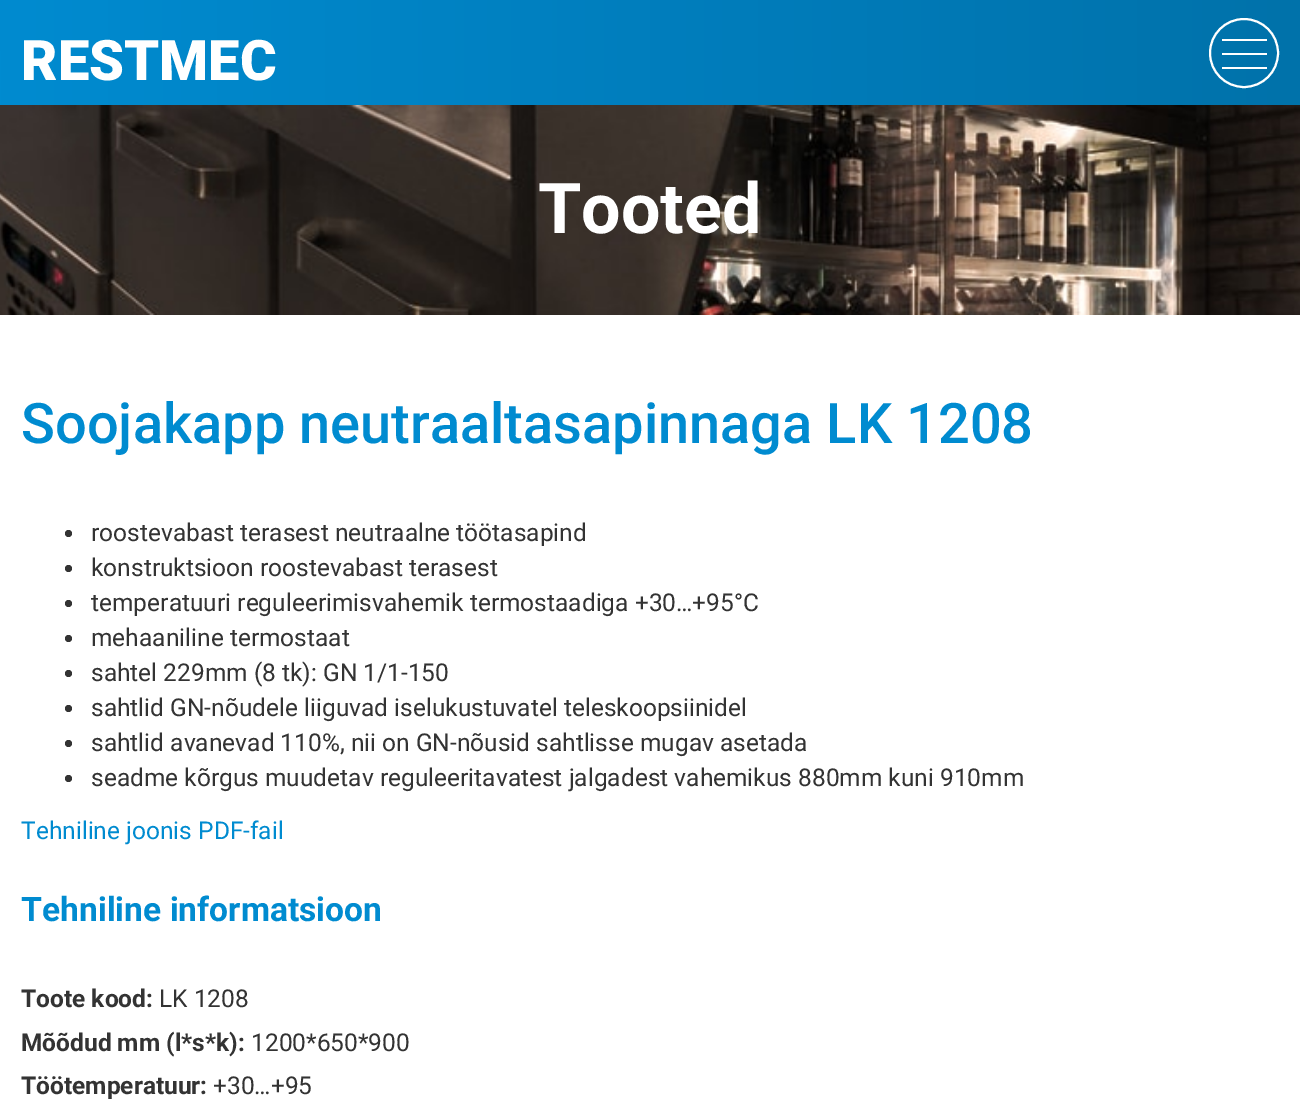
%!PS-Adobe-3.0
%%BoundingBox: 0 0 1300 1118
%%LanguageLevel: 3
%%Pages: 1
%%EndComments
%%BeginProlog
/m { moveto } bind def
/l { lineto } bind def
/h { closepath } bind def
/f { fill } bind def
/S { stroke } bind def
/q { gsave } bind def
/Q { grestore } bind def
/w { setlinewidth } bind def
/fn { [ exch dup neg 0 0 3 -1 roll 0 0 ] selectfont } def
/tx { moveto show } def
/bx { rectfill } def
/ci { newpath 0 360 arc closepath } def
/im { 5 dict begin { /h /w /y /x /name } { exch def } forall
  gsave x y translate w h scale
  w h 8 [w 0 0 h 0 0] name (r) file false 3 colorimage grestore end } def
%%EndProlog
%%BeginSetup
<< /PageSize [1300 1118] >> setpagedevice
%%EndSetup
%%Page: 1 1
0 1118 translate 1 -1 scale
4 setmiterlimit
1 setgray
0 0 1300 1118 bx
q 0 0 m 1300 0 l 1300 105 l 0 105 l h clip newpath
<< /ShadingType 2 /ColorSpace /DeviceRGB /Coords [0 53 1300 52] /Extend [true true] /Function << /FunctionType 2 /Domain [0 1] /C0 [0 0.545 0.816] /C1 [0 0.447 0.667] /N 1 >> >> shfill Q
/Roboto-Black 56 fn
(RESTMEC) 21 80 tx
2 w
1244 53 34 ci S
1222 39 45 2 bx
1222 53 45 2 bx
1222 67 45 2 bx
(image0.raw) 0 105 1300 210 im
/Roboto-Bold 70 fn
(Tooted) 538 233 tx
/Roboto-Medium 56 fn
0 0.545 0.816 setrgbcolor
(Soojakapp neutraaltasapinnaga LK 1208) 21 443 tx
0.2 setgray
68.5 533.5 3.5 ci f
/Roboto-Regular 24.5 fn
(roostevabast terasest neutraalne töötasapind) 91 541 tx
68.5 568.5 3.5 ci f
(konstruktsioon roostevabast terasest) 91 576 tx
68.5 603.5 3.5 ci f
(temperatuuri reguleerimisvahemik termostaadiga +30…+95°C) 91 611 tx
68.5 638.5 3.5 ci f
(mehaaniline termostaat) 91 646 tx
68.5 673.5 3.5 ci f
(sahtel 229mm \(8 tk\): GN 1/1-150) 91 681 tx
68.5 708.5 3.5 ci f
(sahtlid GN-nõudele liiguvad iselukustuvatel teleskoopsiinidel) 91 716 tx
68.5 743.5 3.5 ci f
(sahtlid avanevad 110%, nii on GN-nõusid sahtlisse mugav asetada) 91 751 tx
68.5 778.5 3.5 ci f
(seadme kõrgus muudetav reguleeritavatest jalgadest vahemikus 880mm kuni 910mm) 91 786 tx
0 0.545 0.816 setrgbcolor
(Tehniline joonis PDF-fail) 21 839 tx
/Roboto-Bold 33.6 fn
(Tehniline informatsioon) 21 921 tx
/Roboto-Bold 24.5 fn
0.2 setgray
(Toote kood:) 21 1007 tx
/Roboto-Regular 24.5 fn
(LK 1208) 159 1007 tx
/Roboto-Bold 24.5 fn
(Mõõdud mm \(l*s*k\):) 21 1051 tx
/Roboto-Regular 24.5 fn
(1200*650*900) 251 1051 tx
/Roboto-Bold 24.5 fn
(Töötemperatuur:) 21 1094 tx
/Roboto-Regular 24.5 fn
(+30…+95) 213 1094 tx
showpage
%%EOF
